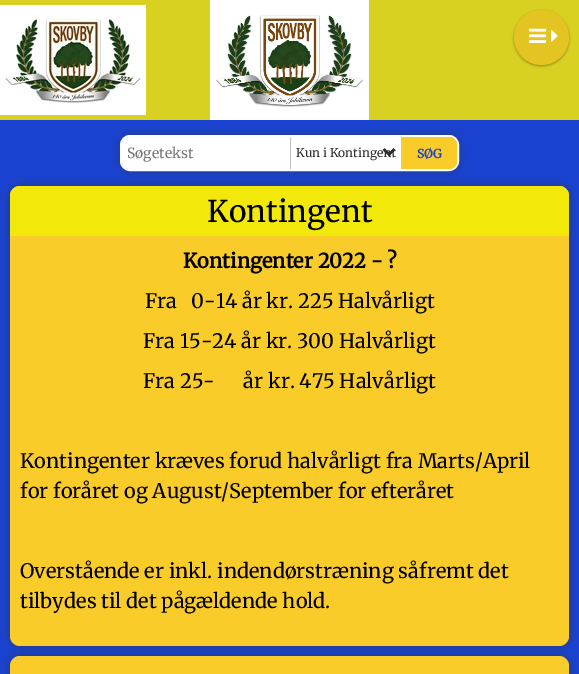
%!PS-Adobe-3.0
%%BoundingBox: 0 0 579 674
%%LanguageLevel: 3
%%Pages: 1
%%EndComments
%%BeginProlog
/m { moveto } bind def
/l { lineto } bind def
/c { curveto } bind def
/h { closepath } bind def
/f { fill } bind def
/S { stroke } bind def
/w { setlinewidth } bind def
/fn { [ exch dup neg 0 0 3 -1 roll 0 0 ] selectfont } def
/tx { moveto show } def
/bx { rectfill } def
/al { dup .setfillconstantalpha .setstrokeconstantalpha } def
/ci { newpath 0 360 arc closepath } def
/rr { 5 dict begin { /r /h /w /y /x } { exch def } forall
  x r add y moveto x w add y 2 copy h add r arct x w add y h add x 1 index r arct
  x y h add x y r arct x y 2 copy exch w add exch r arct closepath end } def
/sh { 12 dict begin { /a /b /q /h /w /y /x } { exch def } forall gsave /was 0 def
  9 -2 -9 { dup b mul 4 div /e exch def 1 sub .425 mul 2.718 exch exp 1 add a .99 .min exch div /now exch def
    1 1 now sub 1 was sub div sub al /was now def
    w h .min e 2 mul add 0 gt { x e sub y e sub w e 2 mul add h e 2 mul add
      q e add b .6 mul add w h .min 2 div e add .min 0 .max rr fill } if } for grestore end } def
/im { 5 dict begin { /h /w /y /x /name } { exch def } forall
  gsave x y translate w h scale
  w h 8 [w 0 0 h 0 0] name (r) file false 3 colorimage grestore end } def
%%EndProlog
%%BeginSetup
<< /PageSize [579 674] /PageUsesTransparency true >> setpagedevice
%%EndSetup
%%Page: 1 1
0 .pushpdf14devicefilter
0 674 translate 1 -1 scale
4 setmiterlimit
0.102 0.259 0.82 setrgbcolor
0 0 579 674 bx
0.188 setgray
10 186 559 460 10 5 0.5 sh
0.98 0.8 0.161 setrgbcolor
10 186 559 460 10 rr f
0.949 0.914 0.043 setrgbcolor
20 186 m 559 186 l 564.5 186 569 190.5 569 196 c 569 236 l 10 236 l 10 196 l 10 190.5 14.5 186 20 186 c h f
0.188 setgray
120 135 339 36 10 5 0.5 sh
0.851 0.82 0.129 setrgbcolor
0 0 579 120 bx
(image0.raw) 210 0 159 120 im
(image1.raw) 0 5 146 110 im
0 setgray
514 11 55 55 27.5 1 0.24 sh
514 11 55 55 27.5 1.5 0.12 sh
0.89 0.769 0.137 setrgbcolor
541.5 37.5 27.5 ci f
(image2.raw) 529 28 18 15 im
(image3.raw) 551 30 7 12 im
1 setgray
2 w
121 136 337 34 9 rr S
130 137 m 294 137 l 294 169 l 130 169 l 125.5 169 122 165.5 122 161 c 122 145 l 122 140.5 125.5 137 130 137 c h f
/Merriweather-Light 14 fn
0.459 setgray
(Søgetekst) 127 158 tx
1 setgray
294 137 107 32 bx
0.761 setgray
290 137 1 32 bx
/Merriweather-Light 12 fn
0.173 setgray
(Kun i Kontingent) 296 157 tx
(image4.raw) 382 148 14 9 im
0.98 0.8 0.161 setrgbcolor
401 137 m 449 137 l 453.5 137 457 140.5 457 145 c 457 161 l 457 165.5 453.5 169 449 169 c 401 169 l h f
/Merriweather-Bold 12 fn
0.102 0.259 0.82 setrgbcolor
(SØG) 417 158 tx
/Merriweather-Light 30 fn
0 setgray
(Kontingent) 207 222 tx
/Merriweather-Bold 20 fn
(Kontingenter 2022 - ?) 183 268 tx
/Merriweather-Light 20 fn
(Fra   0-14 år kr. 225 Halvårligt) 145 308 tx
(Fra 15-24 år kr. 300 Halvårligt) 143 348 tx
(Fra 25-      år kr. 475 Halvårligt) 143 388 tx
(Kontingenter kræves forud halvårligt fra Marts/April) 20 468 tx
(for foråret og August/September for efteråret) 20 498 tx
(Overstående er inkl. indendørstræning såfremt det) 20 578 tx
(tilbydes til det pågældende hold.) 20 608 tx
0.188 setgray
10 656 559 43 10 5 0.5 sh
0.98 0.8 0.161 setrgbcolor
10 656 559 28 10 rr f
.poppdf14devicefilter showpage
%%EOF
